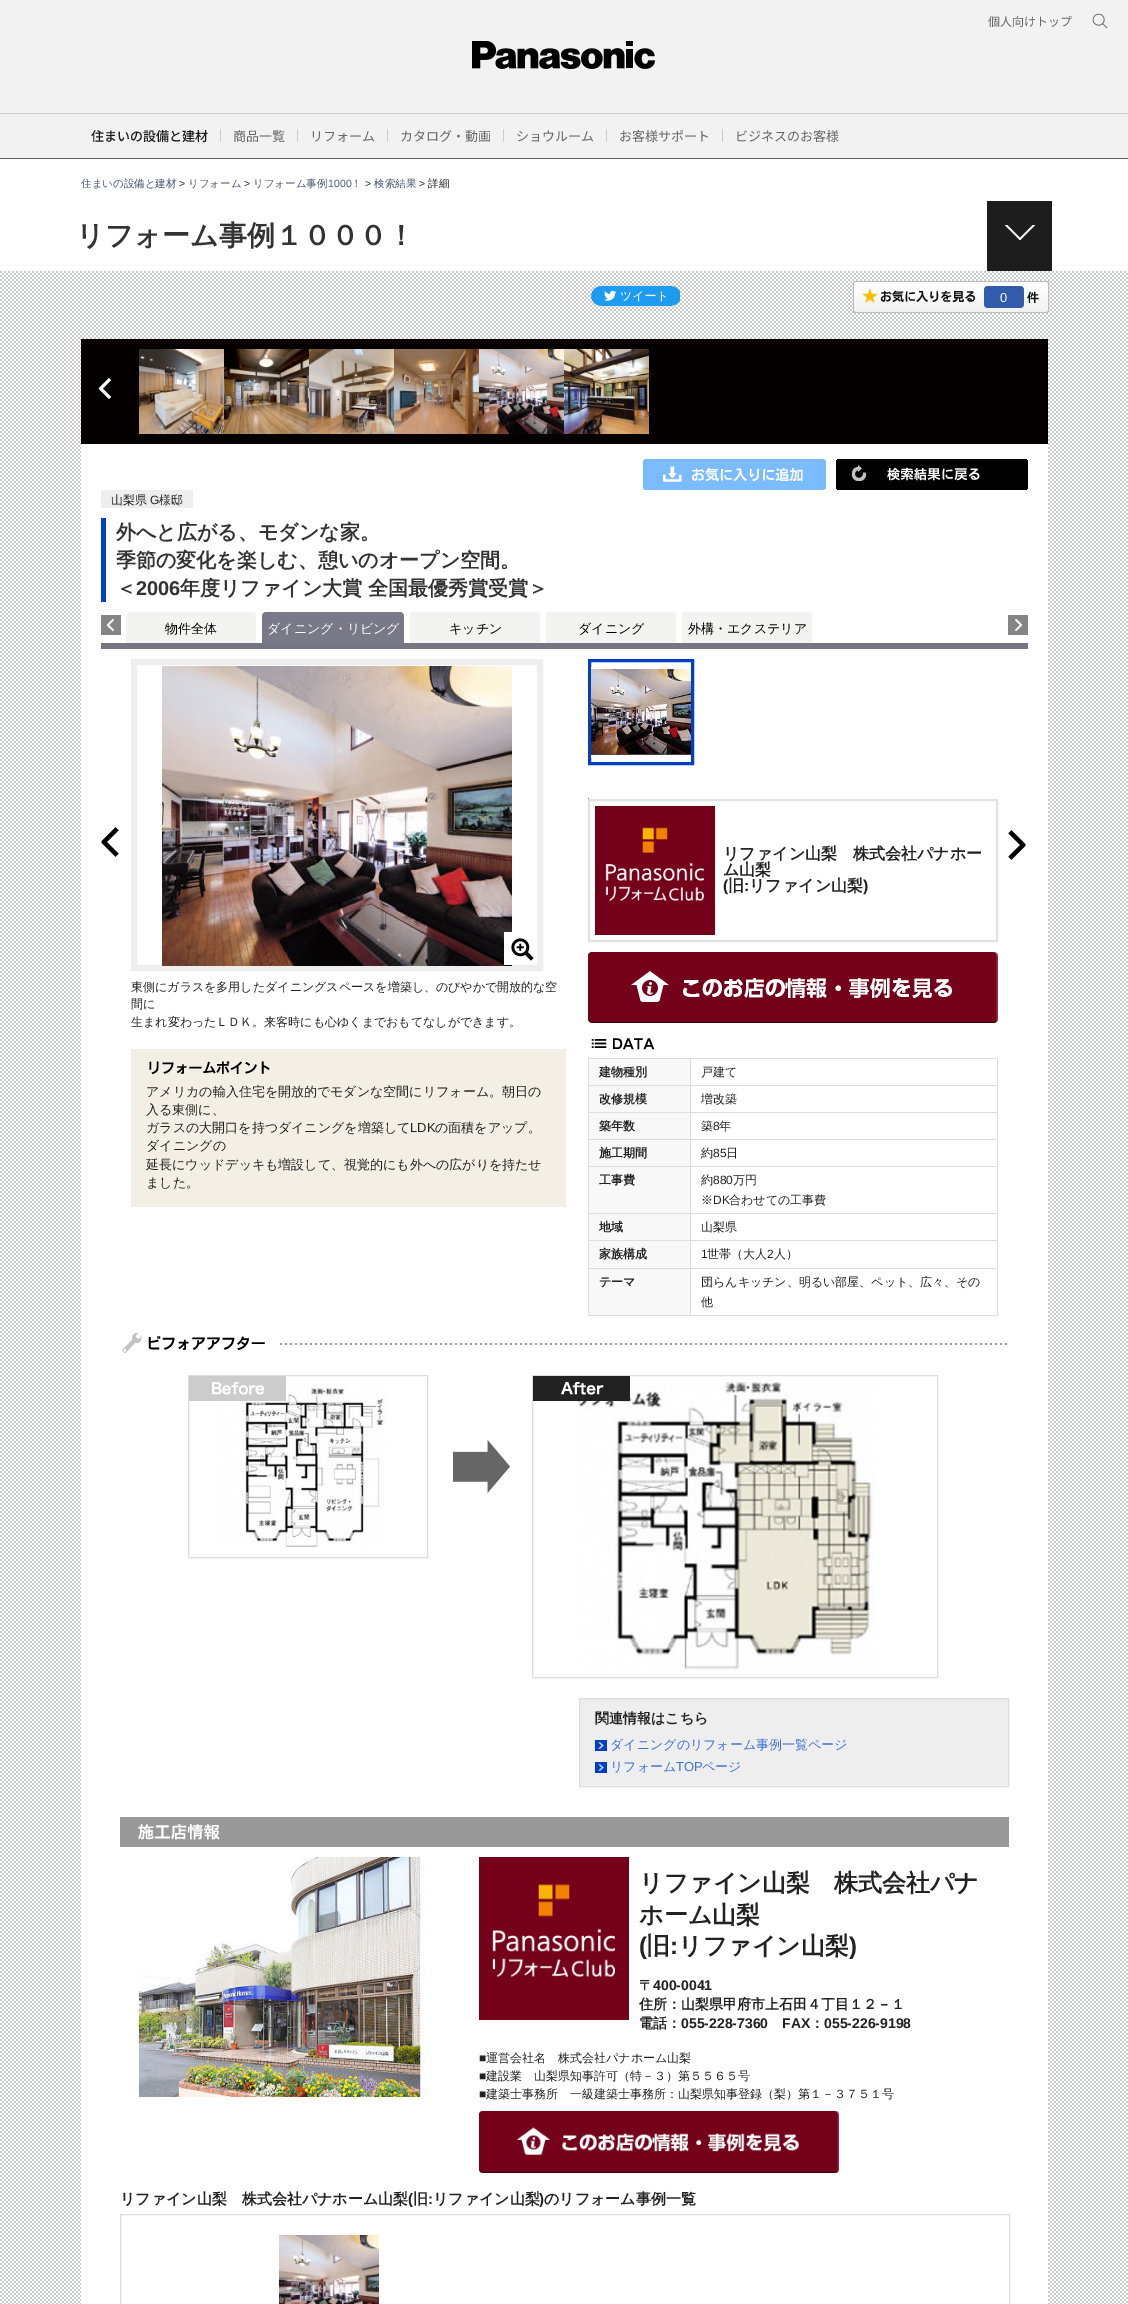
%!PS-Adobe-3.0
%%BoundingBox: 0 0 1128 2304
%%LanguageLevel: 3
%%Pages: 1
%%EndComments
%%BeginProlog
/m { moveto } bind def
/l { lineto } bind def
/c { curveto } bind def
/h { closepath } bind def
/f { fill } bind def
/S { stroke } bind def
/q { gsave } bind def
/Q { grestore } bind def
/w { setlinewidth } bind def
/fn { [ exch dup neg 0 0 3 -1 roll 0 0 ] selectfont } def
/tx { moveto show } def
/bx { rectfill } def
/im { 5 dict begin { /h /w /y /x /name } { exch def } forall
  gsave x y translate w h scale
  w h 8 [w 0 0 h 0 0] name (r) file false 3 colorimage grestore end } def
%%EndProlog
%%BeginSetup
<< /PageSize [1128 2304] >> setpagedevice
%%EndSetup
%%Page: 1 1
0 2304 translate 1 -1 scale
4 setmiterlimit
0.949 setgray
0 0 1128 2304 bx
/NotoSansJP-Regular 12 fn
0.4 setgray
(個人向けトップ) 988 26 tx
(image0.raw) 1092 13 16 16 im
(image1.raw) 472 41 183 28 im
0.365 setgray
0 158 1128 1 bx
0.8 setgray
0 113 1128 1 bx
/NotoSansJP-Medium 13 fn
0.102 setgray
(住まいの設備と建材) 91 141 tx
0.8 setgray
220 129 1 13 bx
/NotoSansJP-Regular 13 fn
0.4 setgray
(商品一覧) 233 141 tx
0.8 setgray
297 129 1 13 bx
0.4 setgray
(リフォーム) 310 141 tx
0.8 setgray
387 129 1 13 bx
0.4 setgray
(カタログ・動画) 400 141 tx
0.8 setgray
503 129 1 13 bx
0.4 setgray
(ショウルーム) 516 141 tx
0.8 setgray
606 129 1 13 bx
0.4 setgray
(お客様サポート) 619 141 tx
0.8 setgray
722 129 1 13 bx
0.4 setgray
(ビジネスのお客様) 735 141 tx
1 setgray
0 159 1128 112 bx
/WenQuanYiZenHei-Medium 10.5 fn
0.271 0.329 0.439 setrgbcolor
(住まいの設備と建材) 81 187 tx
/LiberationSans-Regular 10.5 fn
0.133 setgray
(>) 179 187 tx
/WenQuanYiZenHei-Medium 10.5 fn
0.271 0.329 0.439 setrgbcolor
(リフォーム) 188 187 tx
/LiberationSans-Regular 10.5 fn
0.133 setgray
(>) 244 187 tx
/WenQuanYiZenHei-Medium 10.5 fn
0.271 0.329 0.439 setrgbcolor
(リフォーム事例) 253 187 tx
/LiberationSans-Regular 10.5 fn
(1000) 328 187 tx
/WenQuanYiZenHei-Medium 10.5 fn
(！) 351 187 tx
/LiberationSans-Regular 10.5 fn
0.133 setgray
(>) 365 187 tx
/WenQuanYiZenHei-Medium 10.5 fn
0.271 0.329 0.439 setrgbcolor
(検索結果) 374 187 tx
/LiberationSans-Regular 10.5 fn
0.133 setgray
(>) 419 187 tx
/WenQuanYiZenHei-Medium 10.5 fn
(詳細) 428 187 tx
/WenQuanYiZenHei-Bold 28 fn
0.2 setgray
(リフォーム事例１０００！) 76 245 tx
0.114 setgray
987 201 65 70 bx
(image2.raw) 1005 225 30 15 im
(image3.raw) 0 271 1128 2033 im
(image4.raw) 591 286 89 20 im
(image5.raw) 853 281 196 32 im
/LiberationSans-Regular 13 fn
1 setgray
(0) 1000 302 tx
0.016 0 0 setrgbcolor
81 339 967 105 bx
(image6.raw) 98 377 14 23 im
(image7.raw) 139 349 85 85 im
(image8.raw) 224 349 85 85 im
(image9.raw) 309 349 85 85 im
(image10.raw) 394 349 85 85 im
(image11.raw) 479 349 85 85 im
(image12.raw) 564 349 85 85 im
1 setgray
81 444 967 1860 bx
(image13.raw) 643 459 183 31 im
(image14.raw) 836 459 192 31 im
0.933 setgray
101 490 92 18 bx
/WenQuanYiZenHei-Medium 12 fn
0.133 setgray
(山梨県) 111 504 tx
/LiberationSans-Regular 12 fn
(G) 150 504 tx
/WenQuanYiZenHei-Medium 12 fn
(様邸) 159 504 tx
0 0.255 0.749 setrgbcolor
101 518 5 84 bx
/WenQuanYiZenHei-Bold 20 fn
0.2 setgray
(外へと広がる、モダンな家。) 116 539 tx
(季節の変化を楽しむ、憩いのオープン空間。) 116 567 tx
(＜) 116 595 tx
/LiberationSans-Bold 20 fn
(2006) 136 595 tx
/WenQuanYiZenHei-Bold 20 fn
(年度リファイン大賞 全国最優秀賞受賞＞) 180 595 tx
0.459 0.459 0.518 setrgbcolor
101 643 927 6 bx
(image15.raw) 101 615 20 20 im
0.953 0.953 0.945 setrgbcolor
130 612 m 252 612 l 254 612 256 614 256 616 c 256 643 l 126 643 l 126 616 l 126 614 128 612 130 612 c h f
/WenQuanYiZenHei-Medium 13 fn
0 setgray
(物件全体) 165 633 tx
0.475 0.475 0.529 setrgbcolor
266 612 m 400 612 l 402 612 404 614 404 616 c 404 643 l 262 643 l 262 616 l 262 614 264 612 266 612 c h f
1 setgray
(ダイニング・リビング) 267 633 tx
0.953 0.953 0.945 setrgbcolor
414 612 m 536 612 l 538 612 540 614 540 616 c 540 643 l 410 643 l 410 616 l 410 614 412 612 414 612 c h f
0 setgray
(キッチン) 449 633 tx
0.953 0.953 0.945 setrgbcolor
550 612 m 672 612 l 674 612 676 614 676 616 c 676 643 l 546 643 l 546 616 l 546 614 548 612 550 612 c h f
0 setgray
(ダイニング) 578 633 tx
0.953 0.953 0.945 setrgbcolor
686 612 m 808 612 l 810 612 812 614 812 616 c 812 643 l 682 643 l 682 616 l 682 614 684 612 686 612 c h f
0 setgray
(外構・エクステリア) 688 633 tx
(image16.raw) 1008 615 20 20 im
(image17.raw) 101 827 18 30 im
0.933 setgray
6 w
134 662 406 306 rectstroke
(image18.raw) 162 666 350 300 im
(image19.raw) 504 932 30 33 im
/WenQuanYiZenHei-Medium 12 fn
0.133 setgray
(東側にガラスを多用したダイニングスペースを増築し、のびやかで開放的な空) 131 991 tx
(間に) 131 1008 tx
(生まれ変わったＬＤＫ。来客時にも心ゆくまでおもてなしができます。) 131 1026 tx
0.953 0.937 0.898 setrgbcolor
131 1049 435 158 bx
(image20.raw) 149 1061 121 13 im
/WenQuanYiZenHei-Medium 13 fn
0.133 setgray
(アメリカの輸入住宅を開放的でモダンな空間にリフォーム。朝日の) 146 1096 tx
(入る東側に、) 146 1114 tx
(ガラスの大開口を持つダイニングを増築して) 146 1132 tx
/LiberationSans-Regular 13 fn
(LDK) 410 1132 tx
/WenQuanYiZenHei-Medium 13 fn
(の面積をアップ。) 435 1132 tx
(ダイニングの) 146 1150 tx
(延長にウッドデッキも増設して、視覚的にも外への広がりを持たせ) 146 1169 tx
(ました。) 146 1187 tx
0.004 0.251 0.757 setrgbcolor
3 w
589.5 660.5 103 103 rectstroke
(image21.raw) 591 667 100 91 im
0.467 setgray
588 798 1 1 bx
0.882 0.882 0.867 setrgbcolor
2 w
589 800 408 141 rectstroke
(image22.raw) 595 806 120 129 im
/WenQuanYiZenHei-Bold 16 fn
0.133 setgray
(リファイン山梨　株式会社パナホー) 723 859 tx
(ム山梨) 723 875 tx
/LiberationSans-Bold 16 fn
(\() 723 891 tx
/WenQuanYiZenHei-Bold 16 fn
(旧) 728 891 tx
/LiberationSans-Bold 16 fn
(:) 744 891 tx
/WenQuanYiZenHei-Bold 16 fn
(リファイン山梨) 749 891 tx
/LiberationSans-Bold 16 fn
(\)) 863 891 tx
(image23.raw) 588 952 410 71 im
(image24.raw) 591 1038 64 12 im
0.973 setgray
589 1059 101 26 bx
0.867 setgray
690 1058 308 1 bx
690 1085 308 1 bx
690 1112 308 1 bx
690 1139 308 1 bx
690 1166 308 1 bx
690 1213 308 1 bx
690 1240 308 1 bx
690 1268 308 1 bx
997 1268 1 48 bx
690 1315 308 1 bx
690 1268 1 48 bx
588 1268 103 1 bx
690 1240 1 29 bx
588 1240 103 1 bx
690 1213 1 28 bx
588 1213 103 1 bx
690 1166 1 48 bx
588 1166 103 1 bx
690 1139 1 28 bx
588 1139 103 1 bx
690 1112 1 28 bx
588 1112 103 1 bx
690 1085 1 28 bx
588 1085 103 1 bx
690 1058 1 28 bx
588 1058 103 1 bx
588 1315 103 1 bx
588 1268 1 48 bx
588 1240 1 29 bx
588 1213 1 28 bx
588 1166 1 48 bx
588 1139 1 28 bx
588 1112 1 28 bx
588 1085 1 28 bx
588 1058 1 28 bx
/WenQuanYiZenHei-Bold 12 fn
0.133 setgray
(建物種別) 599 1076 tx
0.867 setgray
997 1240 1 29 bx
997 1213 1 28 bx
997 1166 1 48 bx
997 1139 1 28 bx
997 1112 1 28 bx
997 1085 1 28 bx
997 1058 1 28 bx
/WenQuanYiZenHei-Medium 12 fn
0.133 setgray
(戸建て) 701 1076 tx
0.973 setgray
589 1086 101 26 bx
/WenQuanYiZenHei-Bold 12 fn
0.133 setgray
(改修規模) 599 1103 tx
/WenQuanYiZenHei-Medium 12 fn
(増改築) 701 1103 tx
0.973 setgray
589 1113 101 26 bx
/WenQuanYiZenHei-Bold 12 fn
0.133 setgray
(築年数) 599 1130 tx
/WenQuanYiZenHei-Medium 12 fn
(築) 701 1130 tx
/LiberationSans-Regular 12 fn
(8) 713 1130 tx
/WenQuanYiZenHei-Medium 12 fn
(年) 719 1130 tx
0.973 setgray
589 1140 101 26 bx
/WenQuanYiZenHei-Bold 12 fn
0.133 setgray
(施工期間) 599 1157 tx
/WenQuanYiZenHei-Medium 12 fn
(約) 701 1157 tx
/LiberationSans-Regular 12 fn
(85) 713 1157 tx
/WenQuanYiZenHei-Medium 12 fn
(日) 726 1157 tx
0.973 setgray
589 1167 101 46 bx
/WenQuanYiZenHei-Bold 12 fn
0.133 setgray
(工事費) 599 1184 tx
/WenQuanYiZenHei-Medium 12 fn
(約) 701 1184 tx
/LiberationSans-Regular 12 fn
(880) 713 1184 tx
/WenQuanYiZenHei-Medium 12 fn
(万円) 733 1184 tx
(※) 701 1204 tx
/LiberationSans-Regular 12 fn
(DK) 713 1204 tx
/WenQuanYiZenHei-Medium 12 fn
(合わせての工事費) 729 1204 tx
0.973 setgray
589 1214 101 26 bx
/WenQuanYiZenHei-Bold 12 fn
0.133 setgray
(地域) 599 1231 tx
/WenQuanYiZenHei-Medium 12 fn
(山梨県) 701 1231 tx
0.973 setgray
589 1241 101 27 bx
/WenQuanYiZenHei-Bold 12 fn
0.133 setgray
(家族構成) 599 1258 tx
/LiberationSans-Regular 12 fn
(1) 701 1258 tx
/WenQuanYiZenHei-Medium 12 fn
(世帯（大人) 707 1258 tx
/LiberationSans-Regular 12 fn
(2) 767 1258 tx
/WenQuanYiZenHei-Medium 12 fn
(人）) 774 1258 tx
0.973 setgray
589 1269 101 46 bx
/WenQuanYiZenHei-Bold 12 fn
0.133 setgray
(テーマ) 599 1286 tx
/WenQuanYiZenHei-Medium 12 fn
(団らんキッチン、明るい部屋、ペット、広々、その) 701 1286 tx
(他) 701 1306 tx
(image25.raw) 1008 830 18 30 im
(image26.raw) 122 1333 885 20 im
0.867 setgray
1 w
188.5 1375.5 239 182 rectstroke
(image28.raw) 218 1383 169 164 im
(image27.raw) 189 1376 97 25 im
(image29.raw) 453 1440 57 53 im
532.5 1375.5 405 302 rectstroke
(image31.raw) 575 1378 301 293 im
(image30.raw) 533 1376 97 25 im
0.933 setgray
579.5 1698.5 m 1008.5 1698.5 l 1008.5 1786.5 l 579.5 1786.5 l h q f Q
0.867 setgray
S
/WenQuanYiZenHei-Bold 14 fn
0.133 setgray
(関連情報はこちら) 595 1723 tx
(image32.raw) 595 1740 12 11 im
/WenQuanYiZenHei-Medium 13 fn
0.243 0.439 0.82 setrgbcolor
(ダイニングのリフォーム事例一覧ページ) 610 1749 tx
(image32.raw) 595 1762 12 11 im
(リフォーム) 610 1771 tx
/LiberationSans-Regular 13 fn
(TOP) 676 1771 tx
/WenQuanYiZenHei-Medium 13 fn
(ページ) 702 1771 tx
(image33.raw) 120 1817 889 30 im
(image34.raw) 136 1857 289 240 im
(image35.raw) 479 1857 150 163 im
/WenQuanYiZenHei-Bold 24 fn
0.133 setgray
(リファイン山梨　株式会社パナ) 639 1891 tx
(ホーム山梨) 639 1923 tx
/LiberationSans-Bold 24 fn
(\() 639 1954 tx
/WenQuanYiZenHei-Bold 24 fn
(旧) 646 1954 tx
/LiberationSans-Bold 24 fn
(:) 670 1954 tx
/WenQuanYiZenHei-Bold 24 fn
(リファイン山梨) 678 1954 tx
/LiberationSans-Bold 24 fn
(\)) 849 1954 tx
/WenQuanYiZenHei-Bold 14 fn
(〒) 639 1990 tx
/LiberationSans-Bold 14 fn
(400-0041) 653 1990 tx
/WenQuanYiZenHei-Bold 14 fn
(住所：山梨県甲府市上石田４丁目１２－１) 639 2009 tx
(電話：) 639 2028 tx
/LiberationSans-Bold 14 fn
(055-228-7360) 681 2028 tx
(FAX) 782 2028 tx
/WenQuanYiZenHei-Bold 14 fn
(：) 810 2028 tx
/LiberationSans-Bold 14 fn
(055-226-9198) 824 2028 tx
/LiberationSans-Regular 12 fn
(■) 479 2062 tx
/WenQuanYiZenHei-Medium 12 fn
(運営会社名　株式会社パナホーム山梨) 486 2062 tx
/LiberationSans-Regular 12 fn
(■) 479 2080 tx
/WenQuanYiZenHei-Medium 12 fn
(建設業　山梨県知事許可（特－３）第５５６５号) 486 2080 tx
/LiberationSans-Regular 12 fn
(■) 479 2098 tx
/WenQuanYiZenHei-Medium 12 fn
(建築士事務所　一級建築士事務所：山梨県知事登録（梨）第１－３７５１号) 486 2098 tx
(image36.raw) 479 2111 360 62 im
/WenQuanYiZenHei-Bold 15 fn
(リファイン山梨　株式会社パナホーム山梨) 120 2204 tx
/LiberationSans-Bold 15 fn
(\() 408 2204 tx
/WenQuanYiZenHei-Bold 15 fn
(旧) 413 2204 tx
/LiberationSans-Bold 15 fn
(:) 428 2204 tx
/WenQuanYiZenHei-Bold 15 fn
(リファイン山梨) 433 2204 tx
/LiberationSans-Bold 15 fn
(\)) 539 2204 tx
/WenQuanYiZenHei-Bold 15 fn
(のリフォーム事例一覧) 544 2204 tx
0.867 setgray
120.5 2214.5 889 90 rectstroke
(image37.raw) 279 2235 100 69 im
showpage
%%EOF
